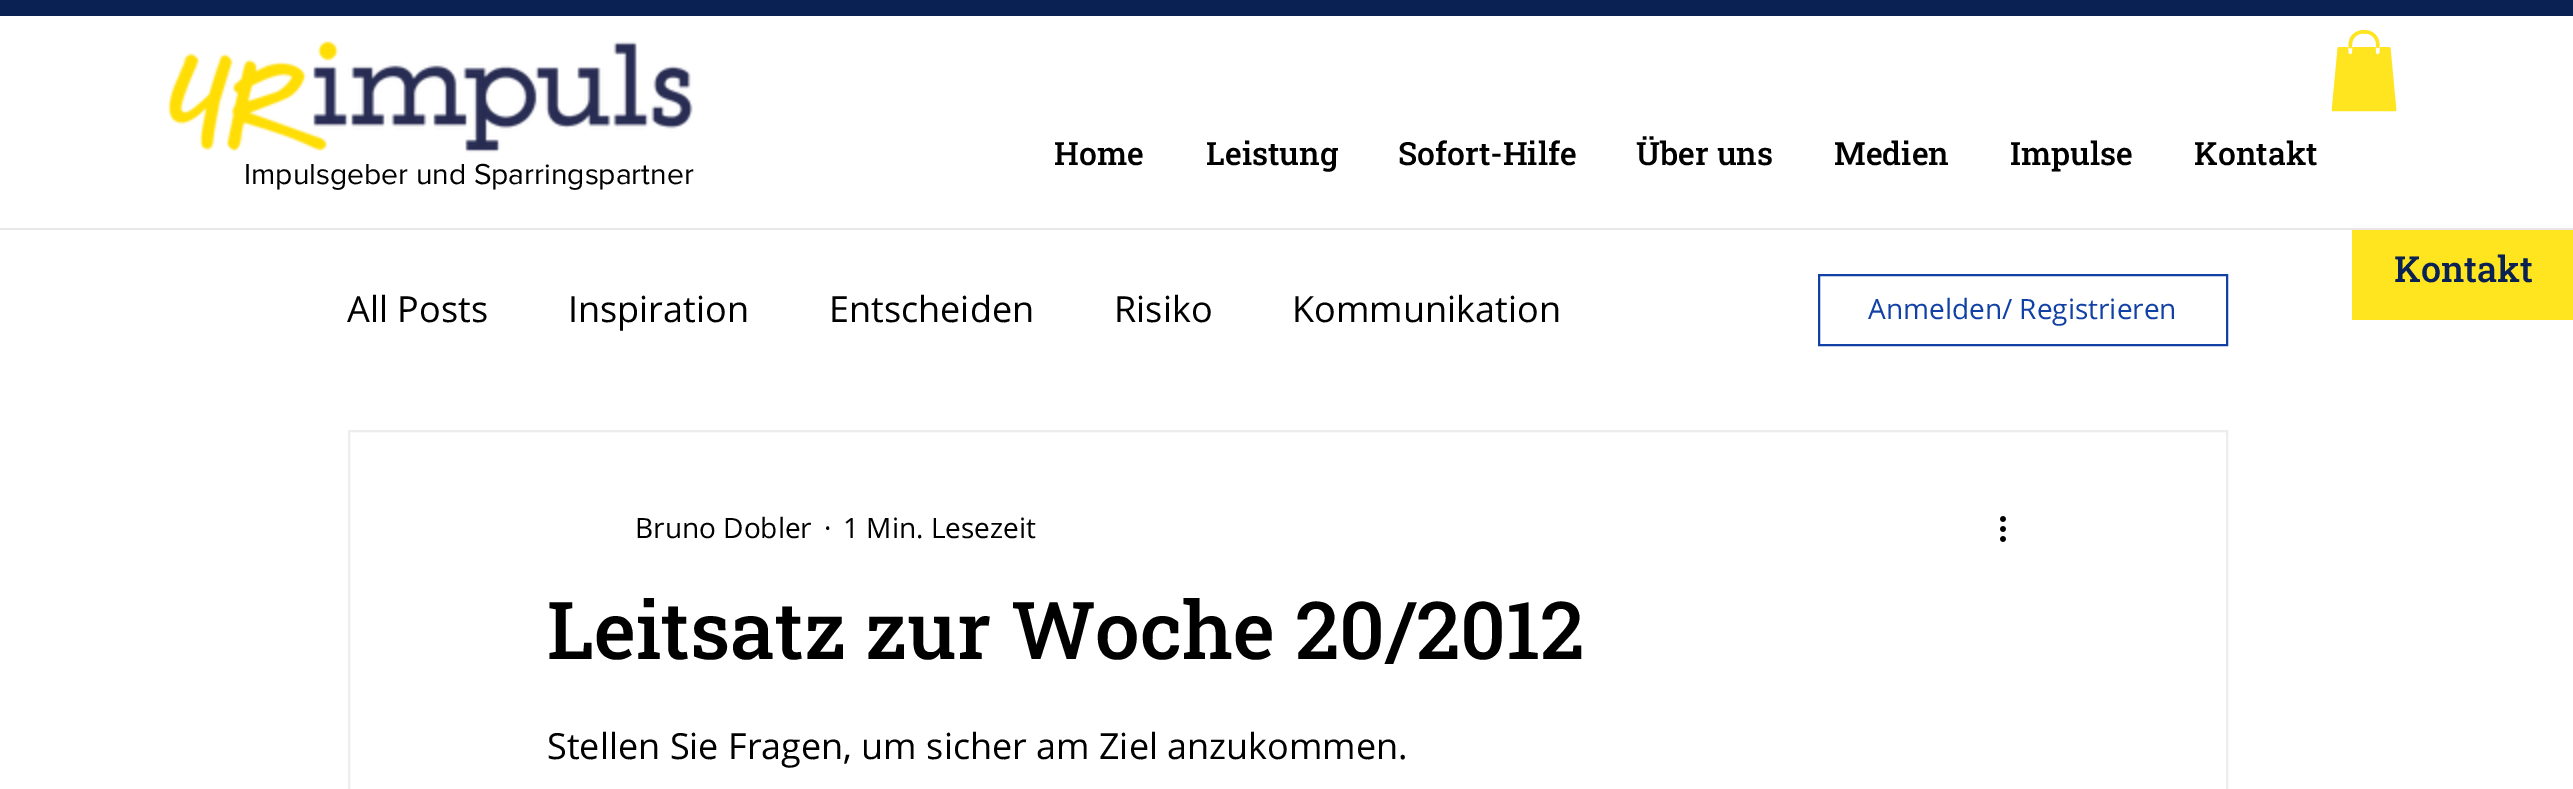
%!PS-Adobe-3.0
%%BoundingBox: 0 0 2573 789
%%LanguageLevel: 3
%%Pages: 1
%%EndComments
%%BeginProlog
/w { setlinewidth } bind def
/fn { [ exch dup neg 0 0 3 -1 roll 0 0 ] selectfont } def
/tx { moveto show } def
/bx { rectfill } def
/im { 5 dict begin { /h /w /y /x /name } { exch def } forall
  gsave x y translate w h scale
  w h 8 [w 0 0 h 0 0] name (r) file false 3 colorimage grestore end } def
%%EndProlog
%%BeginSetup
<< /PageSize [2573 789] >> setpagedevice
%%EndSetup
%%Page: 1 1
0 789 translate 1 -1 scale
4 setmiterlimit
1 setgray
0 0 2573 789 bx
0.035 0.129 0.325 setrgbcolor
0 0 2573 16 bx
(image0.raw) 2331 30 66 82 im
/RobotoSlab-Medium 32 fn
0 setgray
(Home) 1054 165 tx
(Leistung) 1206 165 tx
(Sofort-Hilfe) 1398 165 tx
(Über uns) 1636 165 tx
(Medien) 1834 165 tx
(Impulse) 2010 165 tx
(Kontakt) 2194 165 tx
(image1.raw) 167 41 526 112 im
/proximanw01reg-Regular 30 fn
(Impulsgeber und Sparringspartner) 244 184 tx
0.91 0.902 0.902 setrgbcolor
0 228 2573 2 bx
1 0.894 0.125 setrgbcolor
2352 230 221 90 bx
/RobotoSlab-Medium 36 fn
0.035 0.129 0.325 setrgbcolor
(Kontakt) 2394 282 tx
/OpenSans-Regular 36 fn
0 setgray
(All Posts) 347 322 tx
(Inspiration) 568 322 tx
(Entscheiden) 829 322 tx
(Risiko) 1114 322 tx
(Kommunikation) 1292 322 tx
0.071 0.255 0.651 setrgbcolor
2 w
1819 275 408 70 rectstroke
/OpenSans-Regular 28 fn
(Anmelden/ Registrieren) 1868 319 tx
0.933 0.925 0.925 setrgbcolor
349 431 1878 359 rectstroke
0 setgray
(Bruno Dobler) 635 538 tx
(·) 824 538 tx
(1 Min. Lesezeit) 843 538 tx
(image2.raw) 2000 516 6 26 im
/RobotoSlab-Medium 80 fn
(Leitsatz zur Woche 20/2012) 547 659 tx
/OpenSans-Regular 36 fn
(Stellen Sie Fragen, um sicher am Ziel anzukommen.) 547 759 tx
showpage
%%EOF
